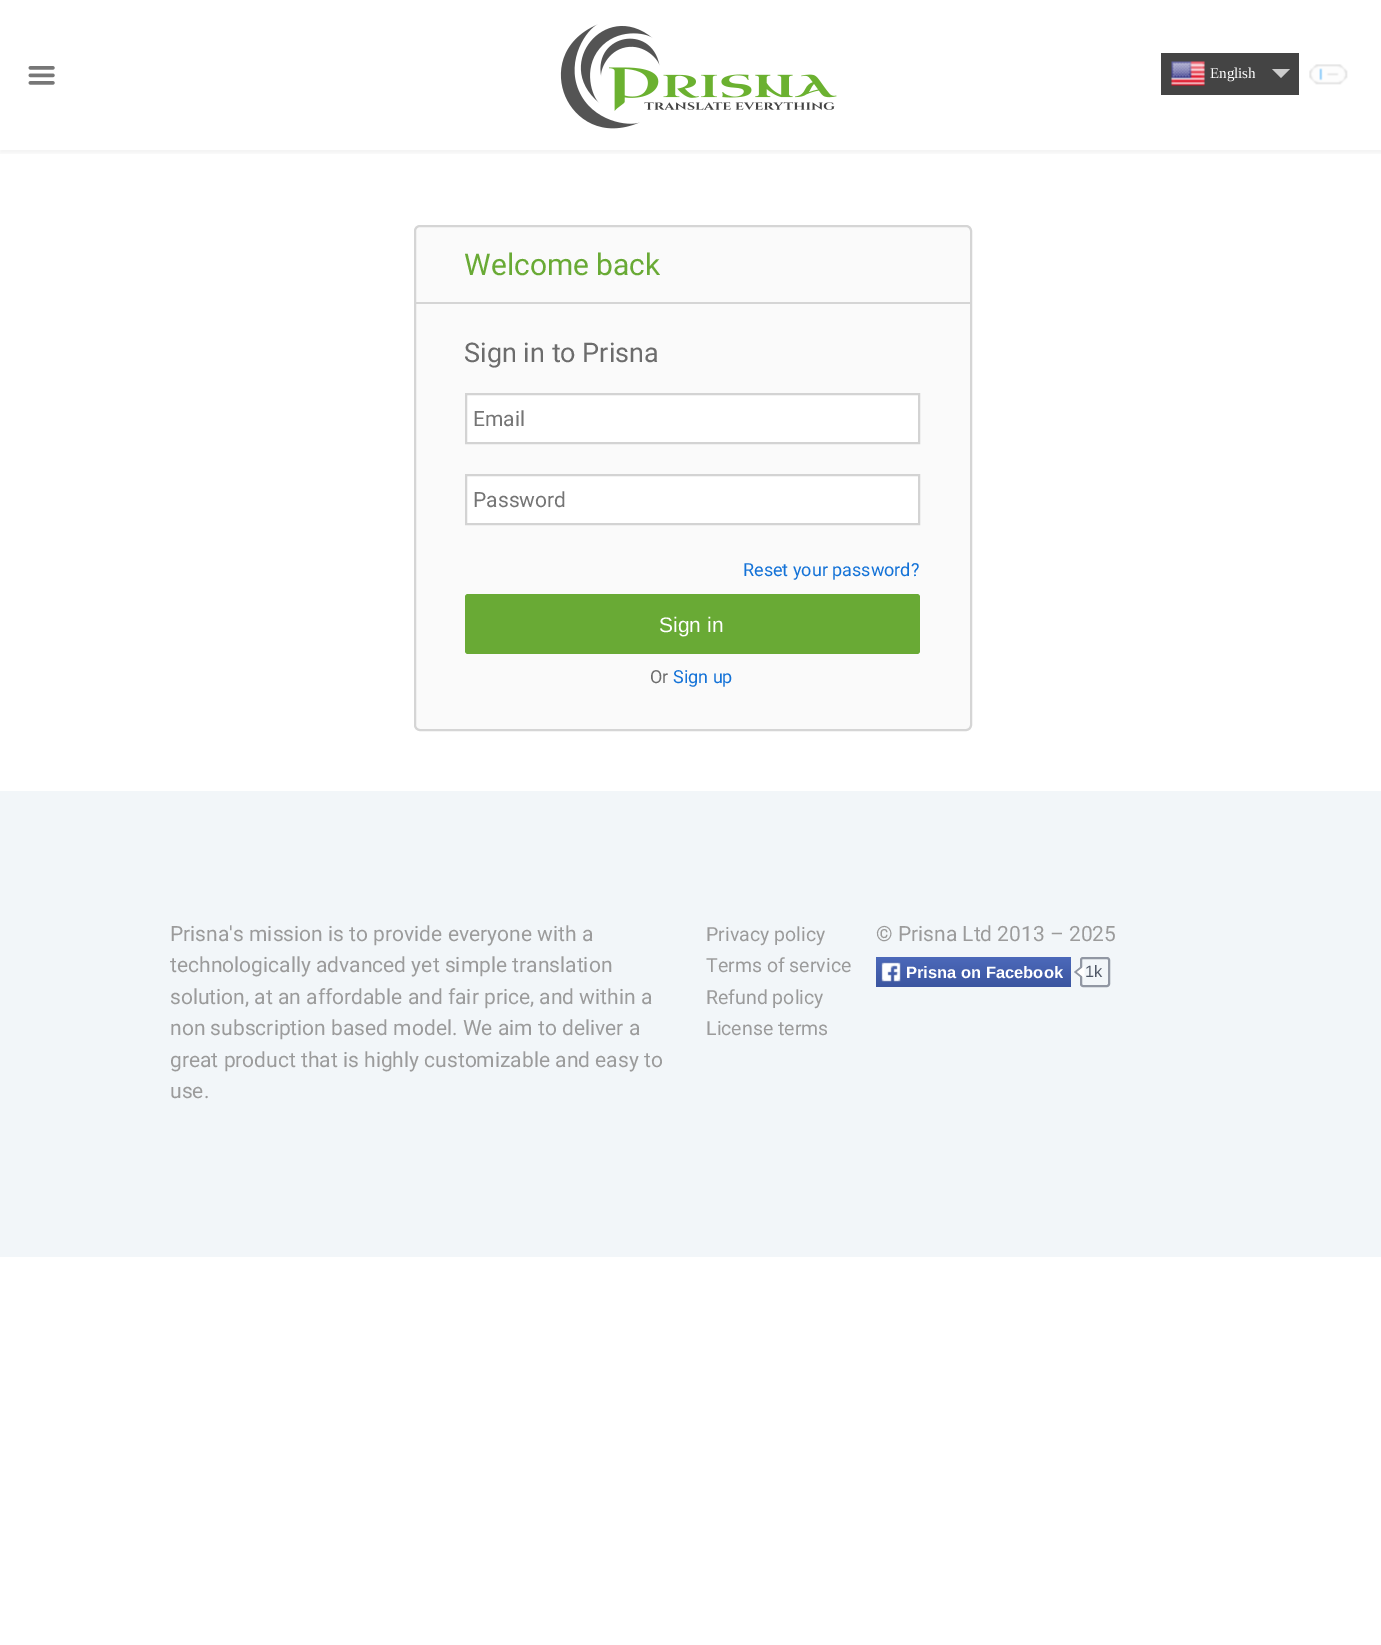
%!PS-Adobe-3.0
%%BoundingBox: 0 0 1381 1645
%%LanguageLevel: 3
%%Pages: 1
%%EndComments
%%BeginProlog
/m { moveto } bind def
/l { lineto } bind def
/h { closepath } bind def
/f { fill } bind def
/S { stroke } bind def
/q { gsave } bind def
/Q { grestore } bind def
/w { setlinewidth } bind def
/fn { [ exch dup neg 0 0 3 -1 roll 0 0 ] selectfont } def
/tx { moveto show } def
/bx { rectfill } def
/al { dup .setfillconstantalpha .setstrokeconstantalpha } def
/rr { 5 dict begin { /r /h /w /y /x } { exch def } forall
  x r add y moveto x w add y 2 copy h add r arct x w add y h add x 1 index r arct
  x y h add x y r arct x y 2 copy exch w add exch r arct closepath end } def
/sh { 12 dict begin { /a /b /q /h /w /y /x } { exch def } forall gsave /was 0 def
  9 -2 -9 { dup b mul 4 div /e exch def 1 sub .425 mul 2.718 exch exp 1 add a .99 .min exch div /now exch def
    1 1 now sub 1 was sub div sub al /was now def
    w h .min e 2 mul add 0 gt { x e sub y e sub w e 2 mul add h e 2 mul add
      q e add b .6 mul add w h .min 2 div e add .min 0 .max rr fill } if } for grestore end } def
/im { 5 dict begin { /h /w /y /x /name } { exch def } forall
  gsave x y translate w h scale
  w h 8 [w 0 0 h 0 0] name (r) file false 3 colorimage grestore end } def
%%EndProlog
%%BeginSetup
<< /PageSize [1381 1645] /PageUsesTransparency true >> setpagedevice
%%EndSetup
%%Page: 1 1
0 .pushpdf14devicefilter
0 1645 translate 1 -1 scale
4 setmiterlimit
1 setgray
0 0 1381 1645 bx
q
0 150 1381 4 rectclip
0 setgray
0 3 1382 150 0 3 0.05 sh
Q
(image0.raw) 28 66 27 19 im
(image1.raw) 560 24 277 105 im
0.267 setgray
1161 53 138 42 bx
(image2.raw) 1171 61 34 25 im
/LiberationSerif-Regular 15 fn
1 setgray
(English) 1210 78 tx
0.8 setgray
1272 69 m 1290 69 l 1281 78 l h f
(image3.raw) 1309 64 39 21 im
0.98 setgray
415 226 556 504 5 rr q f Q
0.835 setgray
2 w
S
416 302 555 2 bx
/Roboto-Regular 30 fn
0.412 0.667 0.208 setrgbcolor
(Welcome back) 464 275 tx
/Roboto-Regular 27 fn
0.424 setgray
(Sign in to Prisna) 464 362 tx
1 setgray
466 394 m 919 394 l 919 443 l 466 443 l h q f Q
0.827 setgray
S
/Roboto-Regular 21 fn
0.459 setgray
(Email) 473 426 tx
1 setgray
466 475 m 919 475 l 919 524 l 466 524 l h q f Q
0.827 setgray
S
0.459 setgray
(Password) 473 507 tx
/Roboto-Regular 18 fn
0.075 0.447 0.843 setrgbcolor
(Reset your password?) 743 576 tx
0.412 0.667 0.208 setrgbcolor
465 594 455 60 3 rr f
/LiberationSans-Regular 21 fn
1 setgray
(Sign in) 659 632 tx
/Roboto-Regular 18 fn
0.424 setgray
(Or) 650 683 tx
0.075 0.447 0.843 setrgbcolor
(Sign up) 673 683 tx
0.949 0.965 0.976 setrgbcolor
0 791 1381 466 bx
/Roboto-Regular 21 fn
0.608 setgray
(Prisna's mission is to provide everyone with a) 170 941 tx
(technologically advanced yet simple translation) 170 972 tx
(solution, at an affordable and fair price, and within a) 170 1004 tx
(non subscription based model. We aim to deliver a) 170 1035 tx
(great product that is highly customizable and easy to) 170 1067 tx
(use.) 170 1098 tx
/Roboto-Regular 19.5 fn
(Privacy policy) 706 941 tx
(Terms of service) 706 972 tx
(Refund policy) 706 1004 tx
(License terms) 706 1035 tx
/Roboto-Regular 21 fn
(© Prisna Ltd 2013 – 2025) 876 941 tx
q 876 957 195 30 3 rr clip newpath
<< /ShadingType 2 /ColorSpace /DeviceRGB /Coords [974 957 974 987] /Extend [true true] /Function << /FunctionType 2 /Domain [0 1] /C0 [0.298 0.412 0.729] /C1 [0.231 0.333 0.627] /N 1 >> >> shfill Q
(image4.raw) 880 961 22 21 im
/LiberationSans-Bold 16.5 fn
1 setgray
(Prisna on Facebook) 906 978 tx
0.569 0.592 0.639 setrgbcolor
1081 958 28 28 2 rr S
1081.5 966 m 1081.5 978 l 1074 972 l h f
1 setgray
1084.5 966 m 1084.5 978 l 1077 972 l h f
/LiberationSans-Regular 16.5 fn
0.306 0.337 0.396 setrgbcolor
(1k) 1085 977 tx
.poppdf14devicefilter showpage
%%EOF
